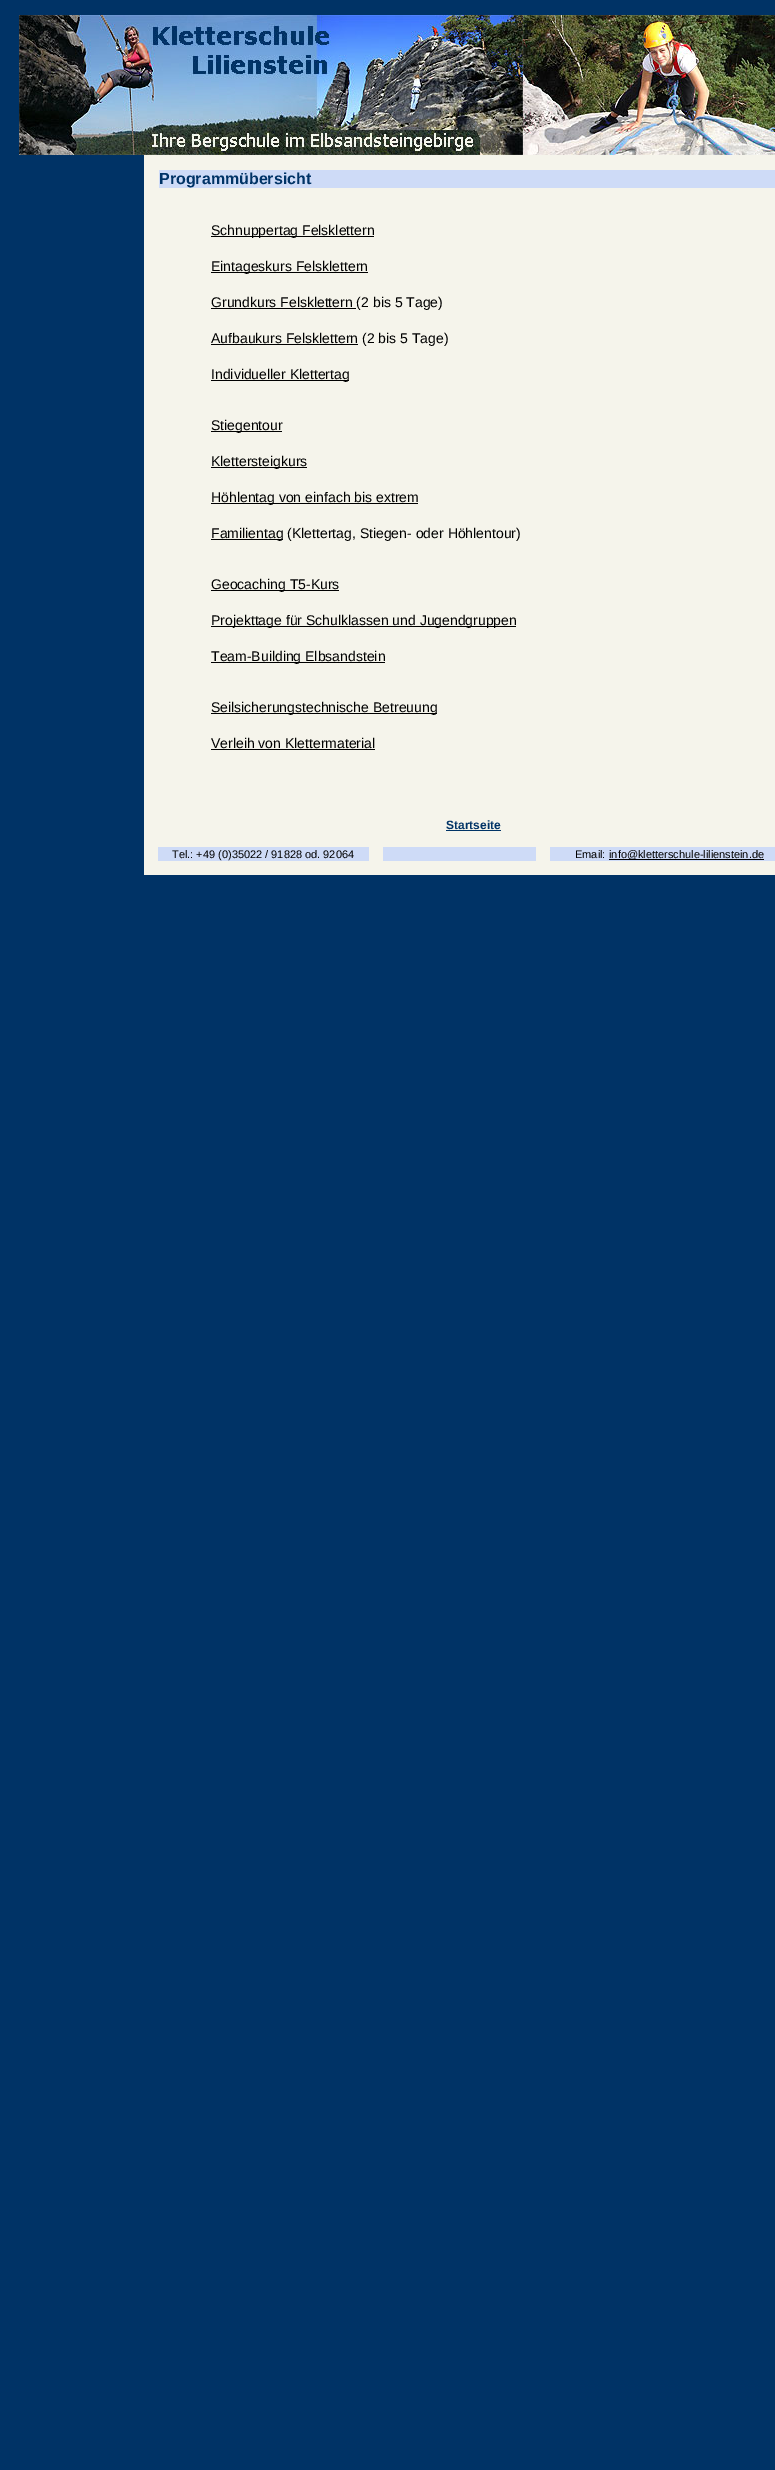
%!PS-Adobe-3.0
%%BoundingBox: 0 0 775 2470
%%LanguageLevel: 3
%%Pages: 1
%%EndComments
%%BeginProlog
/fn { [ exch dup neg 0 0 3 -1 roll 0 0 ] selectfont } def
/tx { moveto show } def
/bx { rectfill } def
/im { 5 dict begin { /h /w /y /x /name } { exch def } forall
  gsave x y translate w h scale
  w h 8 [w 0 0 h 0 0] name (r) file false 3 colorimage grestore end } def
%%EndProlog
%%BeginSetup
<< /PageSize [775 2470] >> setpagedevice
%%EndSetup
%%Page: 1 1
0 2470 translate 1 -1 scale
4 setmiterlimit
0 0.2 0.4 setrgbcolor
0 0 775 2470 bx
(image0.raw) 19 15 756 140 im
0.961 0.957 0.922 setrgbcolor
144 155 631 720 bx
0.808 0.859 0.969 setrgbcolor
159 170 616 18 bx
/LiberationSans-Bold 16 fn
0 0.2 0.4 setrgbcolor
(Programmübersicht) 159 184 tx
0 setgray
211 236 163 1 bx
/LiberationSans-Regular 14 fn
(Schnuppertag Felsklettern) 211 235 tx
211 272 157 1 bx
(Eintageskurs Felsklettern) 211 271 tx
211 308 145 1 bx
(Grundkurs Felsklettern \(2 bis 5 Tage\)) 211 307 tx
211 344 147 1 bx
(Aufbaukurs Felsklettern \(2 bis 5 Tage\)) 211 343 tx
211 380 138 1 bx
(Individueller Klettertag) 211 379 tx
211 431 71 1 bx
(Stiegentour) 211 430 tx
211 467 96 1 bx
(Klettersteigkurs) 211 466 tx
211 503 207 1 bx
(Höhlentag von einfach bis extrem) 211 502 tx
211 539 72 1 bx
(Familientag \(Klettertag, Stiegen- oder Höhlentour\)) 211 538 tx
211 590 128 1 bx
(Geocaching T5-Kurs) 211 589 tx
211 626 305 1 bx
(Projekttage für Schulklassen und Jugendgruppen) 211 625 tx
211 662 174 1 bx
(Team-Building Elbsandstein) 211 661 tx
211 713 226 1 bx
(Seilsicherungstechnische Betreuung) 211 712 tx
(Verleih von Klettermaterial) 211 748 tx
211 749 164 1 bx
/LiberationSans-Bold 12 fn
0 0.2 0.4 setrgbcolor
(Startseite) 446 829 tx
446 830 55 1 bx
0.808 0.859 0.969 setrgbcolor
158 847 211 14 bx
/LiberationSans-Regular 11 fn
0 setgray
(Tel.: +49 \(0\)35022 / 91828 od. 92064) 172 858 tx
0.808 0.859 0.969 setrgbcolor
383 847 153 14 bx
550 847 225 14 bx
0 setgray
(Email:) 575 858 tx
609 859 155 1 bx
(info@kletterschule-lilienstein.de) 609 858 tx
showpage
%%EOF
